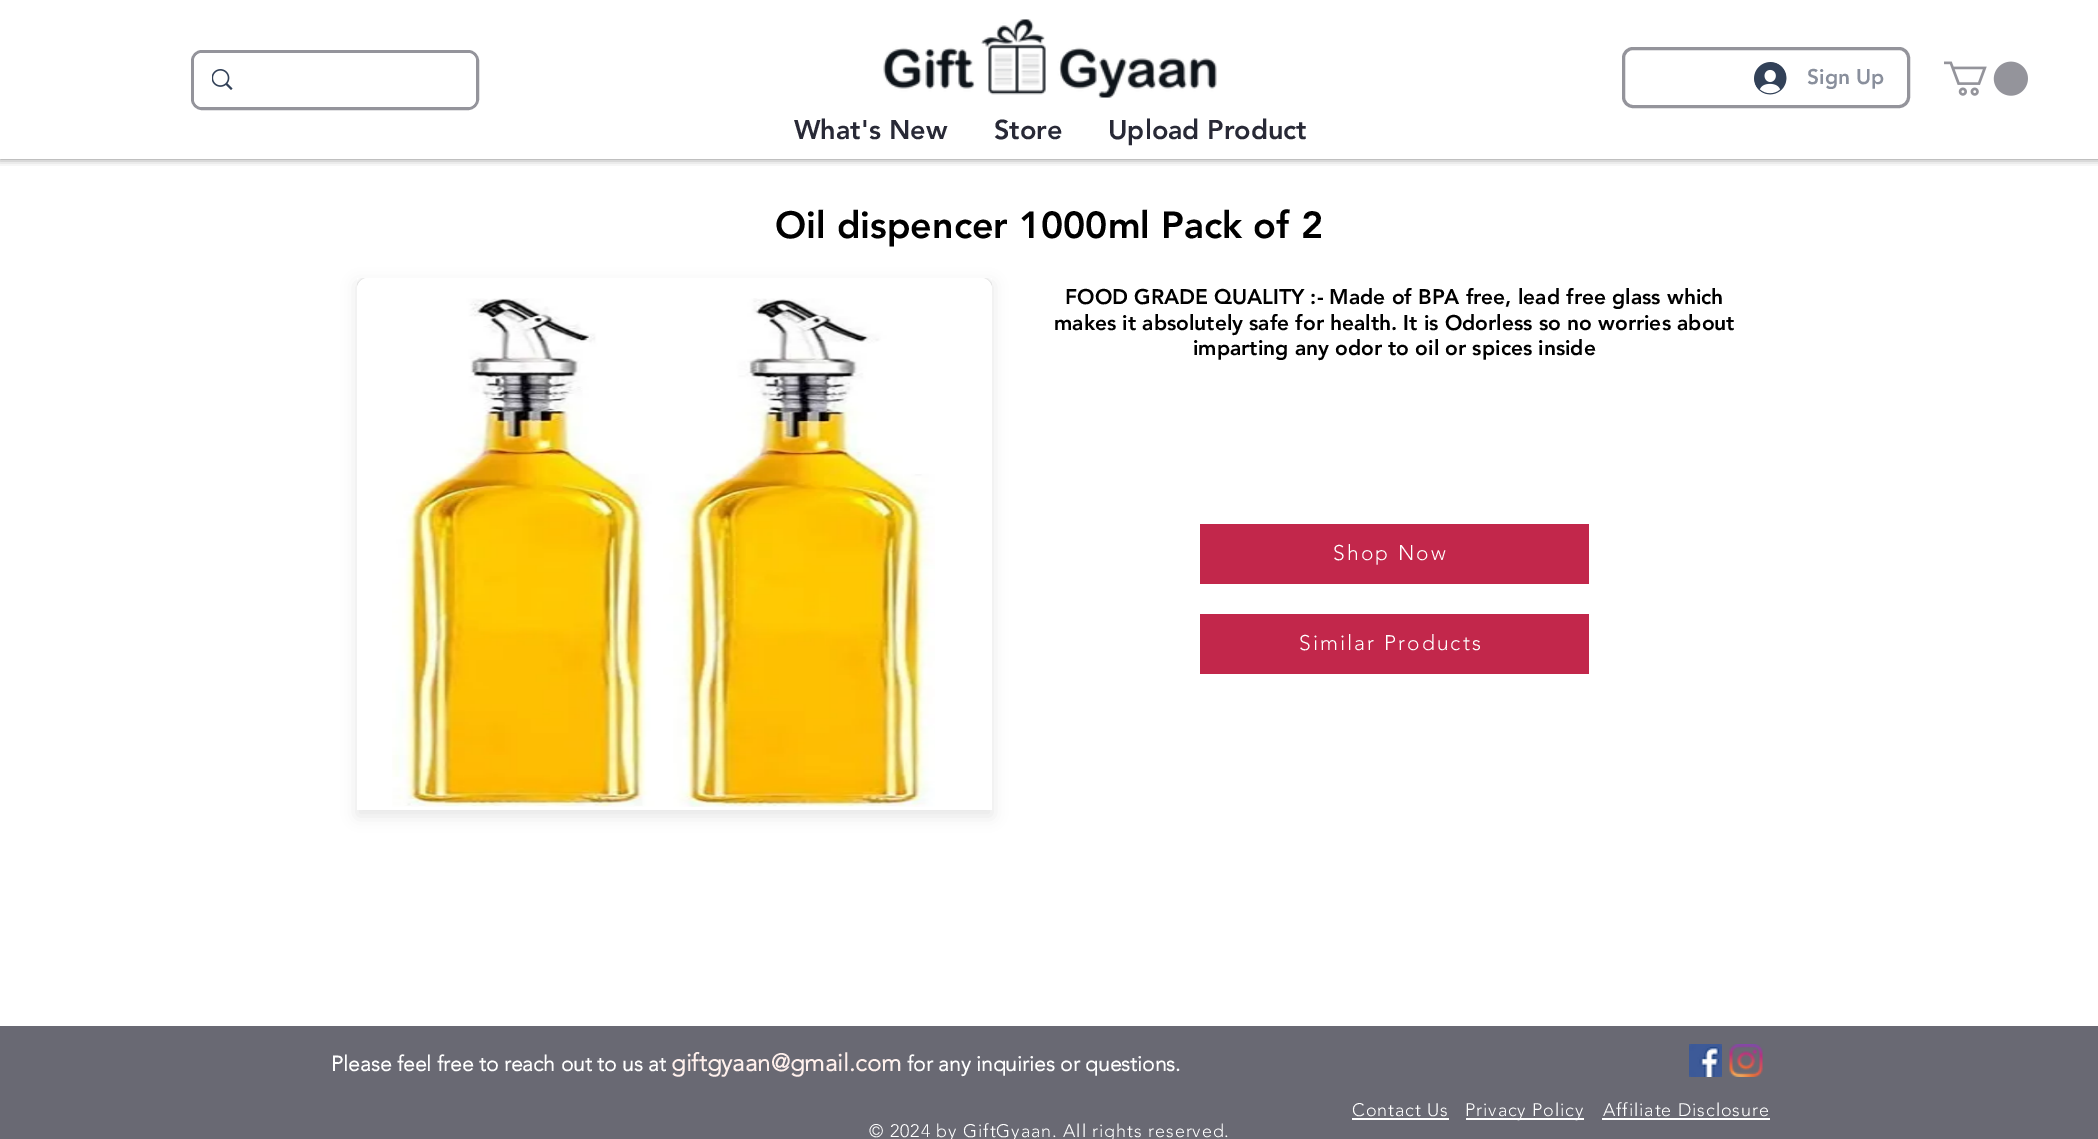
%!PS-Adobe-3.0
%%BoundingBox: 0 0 2098 1139
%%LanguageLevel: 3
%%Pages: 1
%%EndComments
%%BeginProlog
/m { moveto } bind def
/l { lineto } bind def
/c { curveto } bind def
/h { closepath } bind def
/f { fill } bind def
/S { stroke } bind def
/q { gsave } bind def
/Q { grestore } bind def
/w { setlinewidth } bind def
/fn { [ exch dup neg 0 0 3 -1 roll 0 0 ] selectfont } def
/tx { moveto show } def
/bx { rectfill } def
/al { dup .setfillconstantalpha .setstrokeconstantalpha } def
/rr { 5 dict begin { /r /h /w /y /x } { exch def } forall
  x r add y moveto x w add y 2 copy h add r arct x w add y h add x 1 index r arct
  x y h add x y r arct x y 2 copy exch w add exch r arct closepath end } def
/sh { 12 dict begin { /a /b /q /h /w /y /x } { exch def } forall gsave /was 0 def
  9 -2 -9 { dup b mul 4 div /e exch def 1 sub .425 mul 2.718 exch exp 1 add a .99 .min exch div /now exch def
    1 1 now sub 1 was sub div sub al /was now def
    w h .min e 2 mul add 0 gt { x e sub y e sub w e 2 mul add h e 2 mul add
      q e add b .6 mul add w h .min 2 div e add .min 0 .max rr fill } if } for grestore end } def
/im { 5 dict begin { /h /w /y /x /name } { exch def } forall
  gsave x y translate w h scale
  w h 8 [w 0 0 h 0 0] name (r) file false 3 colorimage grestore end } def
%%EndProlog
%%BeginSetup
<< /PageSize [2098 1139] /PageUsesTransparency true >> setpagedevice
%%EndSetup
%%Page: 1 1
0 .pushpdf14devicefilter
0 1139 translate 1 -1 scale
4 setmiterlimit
1 setgray
0 0 2098 1139 bx
q
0 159 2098 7 rectclip
0 setgray
0 0 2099 159 0 4 0.5 sh
Q
0.58 0.58 0.608 setrgbcolor
3 w
192.5 51.5 285 57 9.5 rr S
1 setgray
194 53 282 54 8 rr f
(image0.raw) 212 69 21 21 im
(image1.raw) 883 19 334 79 im
0.58 0.58 0.608 setrgbcolor
1623.5 48.5 285 58 9.5 rr S
(image2.raw) 1754 62 33 33 im
/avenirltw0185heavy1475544-Black 21 fn
0.537 0.561 0.612 setrgbcolor
(Sign Up) 1807 84 tx
(image3.raw) 1944 61 84 35 im
/avenirltw0185heavy1475544-Black 27 fn
0.157 0.161 0.212 setrgbcolor
(What's New) 794 139 tx
(Store) 994 139 tx
(Upload Product) 1108 139 tx
/avenirltw0185heavy1475544-Black 37.5 fn
0 setgray
(Oil dispencer 1000ml Pack of 2) 775 238 tx
357 284 635 532 0 7.5 0.1 sh
1 setgray
357 278 635 11 bx
q
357 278 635 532 rectclip
0 setgray
357 279 635 554 11 2 0.5 sh
Q
368 278 m 981 278 l 987 278 992 283 992 289 c 992 810 l 357 810 l 357 289 l 357 283 362 278 368 278 c h f
q
357 278 635 532 rectclip
358.5 279.5 632 550 9.5 rr S
Q
(image4.raw) 392 298 543 509 im
/avenirltw0185heavy1475544-Black 21 fn
0 setgray
(FOOD GRADE QUALITY :- Made of BPA free, lead free glass which) 1065 304 tx
(makes it absolutely safe for health. It is Odorless so no worries about) 1054 330 tx
(imparting any odor to oil or spices inside) 1193 355 tx
0.761 0.153 0.294 setrgbcolor
1200 524 389 60 bx
/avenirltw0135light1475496-Light 21 fn
1 setgray
1333 560 m 2.1 0 (Shop Now) ashow
0.761 0.153 0.294 setrgbcolor
1200 614 389 60 bx
1 setgray
1299 650 m 2.1 0 (Similar Products) ashow
0.412 0.412 0.451 setrgbcolor
0 1026 2098 113 bx
/avenirltw0135light1475496-Bold 21 fn
1 setgray
(Please feel free to reach out to us at) 331 1071 tx
/avenirltw0135light1475496-Bold 24 fn
1 0.941 0.925 setrgbcolor
(giftgyaan@gmail.com) 671 1071 tx
/avenirltw0135light1475496-Bold 21 fn
1 setgray
(for any inquiries or questions.) 907 1071 tx
(image5.raw) 1689 1044 33 33 im
(image6.raw) 1729 1044 34 33 im
/avenirltw0135light1475496-Light 18 fn
1352 1116 m 0.9 0 (Contact Us) ashow
1352 1118 97 2 bx
1466 1118 118 2 bx
1465 1116 m 0.9 0 (Privacy Policy) ashow
1603 1116 m 0.9 0 (Affiliate Disclosure) ashow
1602 1118 168 2 bx
869 1137 m 0.9 0 (© 2024 by GiftGyaan. All rights reserved.) ashow
.poppdf14devicefilter showpage
%%EOF
